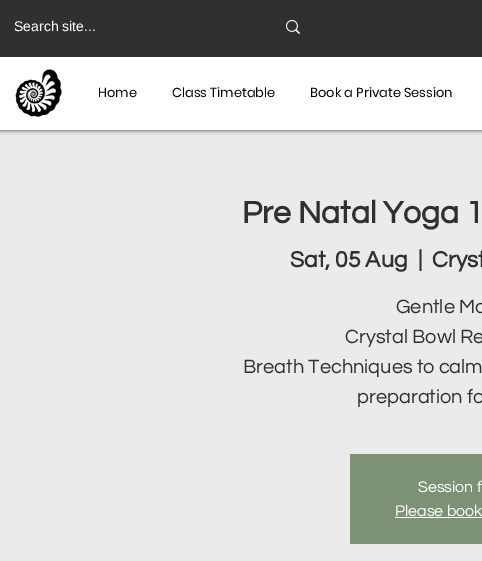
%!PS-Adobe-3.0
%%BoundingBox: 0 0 482 561
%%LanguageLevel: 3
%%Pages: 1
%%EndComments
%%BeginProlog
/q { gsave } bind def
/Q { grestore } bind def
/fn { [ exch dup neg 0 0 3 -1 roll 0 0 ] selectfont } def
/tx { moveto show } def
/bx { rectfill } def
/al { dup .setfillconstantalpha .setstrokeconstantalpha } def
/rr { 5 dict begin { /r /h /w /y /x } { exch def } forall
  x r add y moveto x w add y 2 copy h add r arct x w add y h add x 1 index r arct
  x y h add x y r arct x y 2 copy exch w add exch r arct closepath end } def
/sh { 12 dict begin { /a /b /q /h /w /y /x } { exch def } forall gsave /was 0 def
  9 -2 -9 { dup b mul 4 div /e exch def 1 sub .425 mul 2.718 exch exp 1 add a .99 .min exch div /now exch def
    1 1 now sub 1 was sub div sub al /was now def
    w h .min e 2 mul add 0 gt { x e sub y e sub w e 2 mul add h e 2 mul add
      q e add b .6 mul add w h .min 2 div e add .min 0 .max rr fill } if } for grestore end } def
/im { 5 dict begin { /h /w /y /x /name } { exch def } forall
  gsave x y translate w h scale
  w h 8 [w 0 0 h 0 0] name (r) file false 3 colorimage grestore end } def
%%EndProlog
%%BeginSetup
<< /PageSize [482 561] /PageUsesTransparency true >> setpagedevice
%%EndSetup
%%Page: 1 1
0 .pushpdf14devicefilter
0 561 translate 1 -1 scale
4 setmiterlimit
1 setgray
0 0 482 561 bx
0.922 setgray
0 130 482 431 bx
q
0 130 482 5 rectclip
0 setgray
0 0 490 130 0 2.5 0.7 sh
Q
0.188 setgray
0 0 482 57 bx
/LiberationSans-Regular 14 fn
1 setgray
(Search site...) 14 31 tx
(image0.raw) 286 20 14 14 im
(image1.raw) 15 69 47 48 im
/Poppins-Regular 13 fn
0 setgray
(Home) 98 97 tx
(Class Timetable) 172 97 tx
(Book a Private Session) 310 97 tx
/Questrial-Bold 32 fn
0.188 setgray
(Pre Natal Yoga 1) 242 223 tx
/Questrial-Bold 23 fn
(Sat, 05 Aug) 290 267 tx
(|) 418 267 tx
(Cryst) 432 267 tx
/Questrial-Regular 20 fn
(Gentle Mo) 396 313 tx
(Crystal Bowl Re) 345 343 tx
(Breath Techniques to calm) 243 373 tx
(preparation fo) 357 403 tx
0.49 0.569 0.455 setrgbcolor
350 454 132 90 bx
/Questrial-Regular 16 fn
1 setgray
(Session f) 418 492 tx
(Please book) 395 516 tx
395 517 87 1 bx
.poppdf14devicefilter showpage
%%EOF
